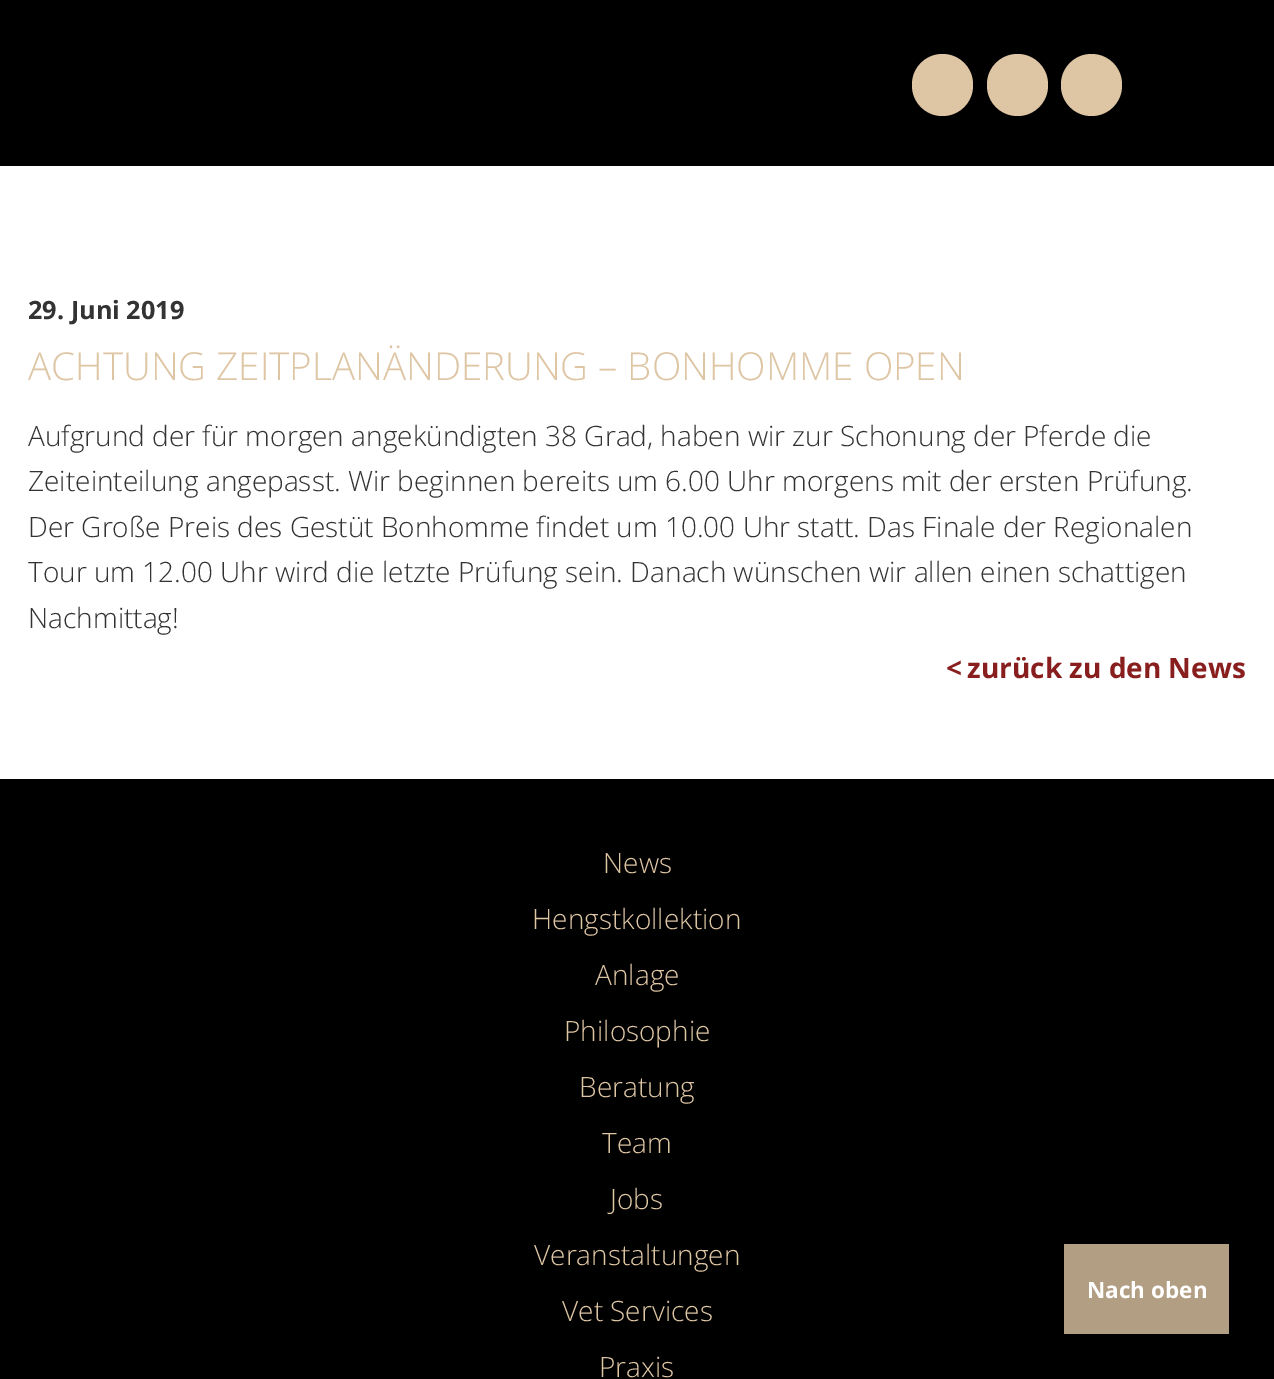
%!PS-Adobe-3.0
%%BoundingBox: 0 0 1274 1379
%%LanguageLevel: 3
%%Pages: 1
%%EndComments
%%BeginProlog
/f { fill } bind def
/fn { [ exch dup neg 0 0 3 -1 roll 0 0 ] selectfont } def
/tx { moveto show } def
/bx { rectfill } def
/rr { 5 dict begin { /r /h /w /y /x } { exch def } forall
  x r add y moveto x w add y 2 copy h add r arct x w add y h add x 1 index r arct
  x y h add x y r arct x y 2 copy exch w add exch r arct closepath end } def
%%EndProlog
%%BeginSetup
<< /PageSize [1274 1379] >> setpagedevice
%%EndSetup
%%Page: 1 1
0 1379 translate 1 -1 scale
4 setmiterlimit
1 setgray
0 0 1274 1379 bx
0 setgray
0 0 1274 166 bx
0.871 0.773 0.643 setrgbcolor
912 54 61 62 30.5 rr f
987 54 61 62 30.5 rr f
1061 54 61 62 30.5 rr f
/OpenSans-Bold 25.25 fn
0.2 setgray
(29. Juni 2019) 28 319 tx
/OpenSans-Light 38.5 fn
0.871 0.773 0.643 setrgbcolor
(ACHTUNG ZEITPLANÄNDERUNG – BONHOMME OPEN) 28 380 tx
/OpenSans-Light 28 fn
0.2 setgray
(Aufgrund der für morgen angekündigten 38 Grad, haben wir zur Schonung der Pferde die) 28 446 tx
(Zeiteinteilung angepasst. Wir beginnen bereits um 6.00 Uhr morgens mit der ersten Prüfung.) 28 491 tx
(Der Große Preis des Gestüt Bonhomme findet um 10.00 Uhr statt. Das Finale der Regionalen) 28 537 tx
(Tour um 12.00 Uhr wird die letzte Prüfung sein. Danach wünschen wir allen einen schattigen) 28 582 tx
(Nachmittag!) 28 628 tx
/OpenSans-Bold 28 fn
0.533 0.118 0.118 setrgbcolor
(<) 946 678 tx
(zurück zu den News) 967 678 tx
0 setgray
0 779 1274 600 bx
/OpenSans-Light 28 fn
0.871 0.773 0.643 setrgbcolor
(News) 603 873 tx
(Hengstkollektion) 532 929 tx
(Anlage) 595 985 tx
(Philosophie) 564 1041 tx
(Beratung) 579 1097 tx
(Team) 602 1153 tx
(Jobs) 610 1209 tx
(Veranstaltungen) 534 1265 tx
(Vet Services) 562 1321 tx
(Praxis) 599 1377 tx
0.698 0.62 0.514 setrgbcolor
1064 1244 165 90 bx
/OpenSans-Bold 22.5 fn
1 setgray
(Nach oben) 1087 1298 tx
showpage
%%EOF
